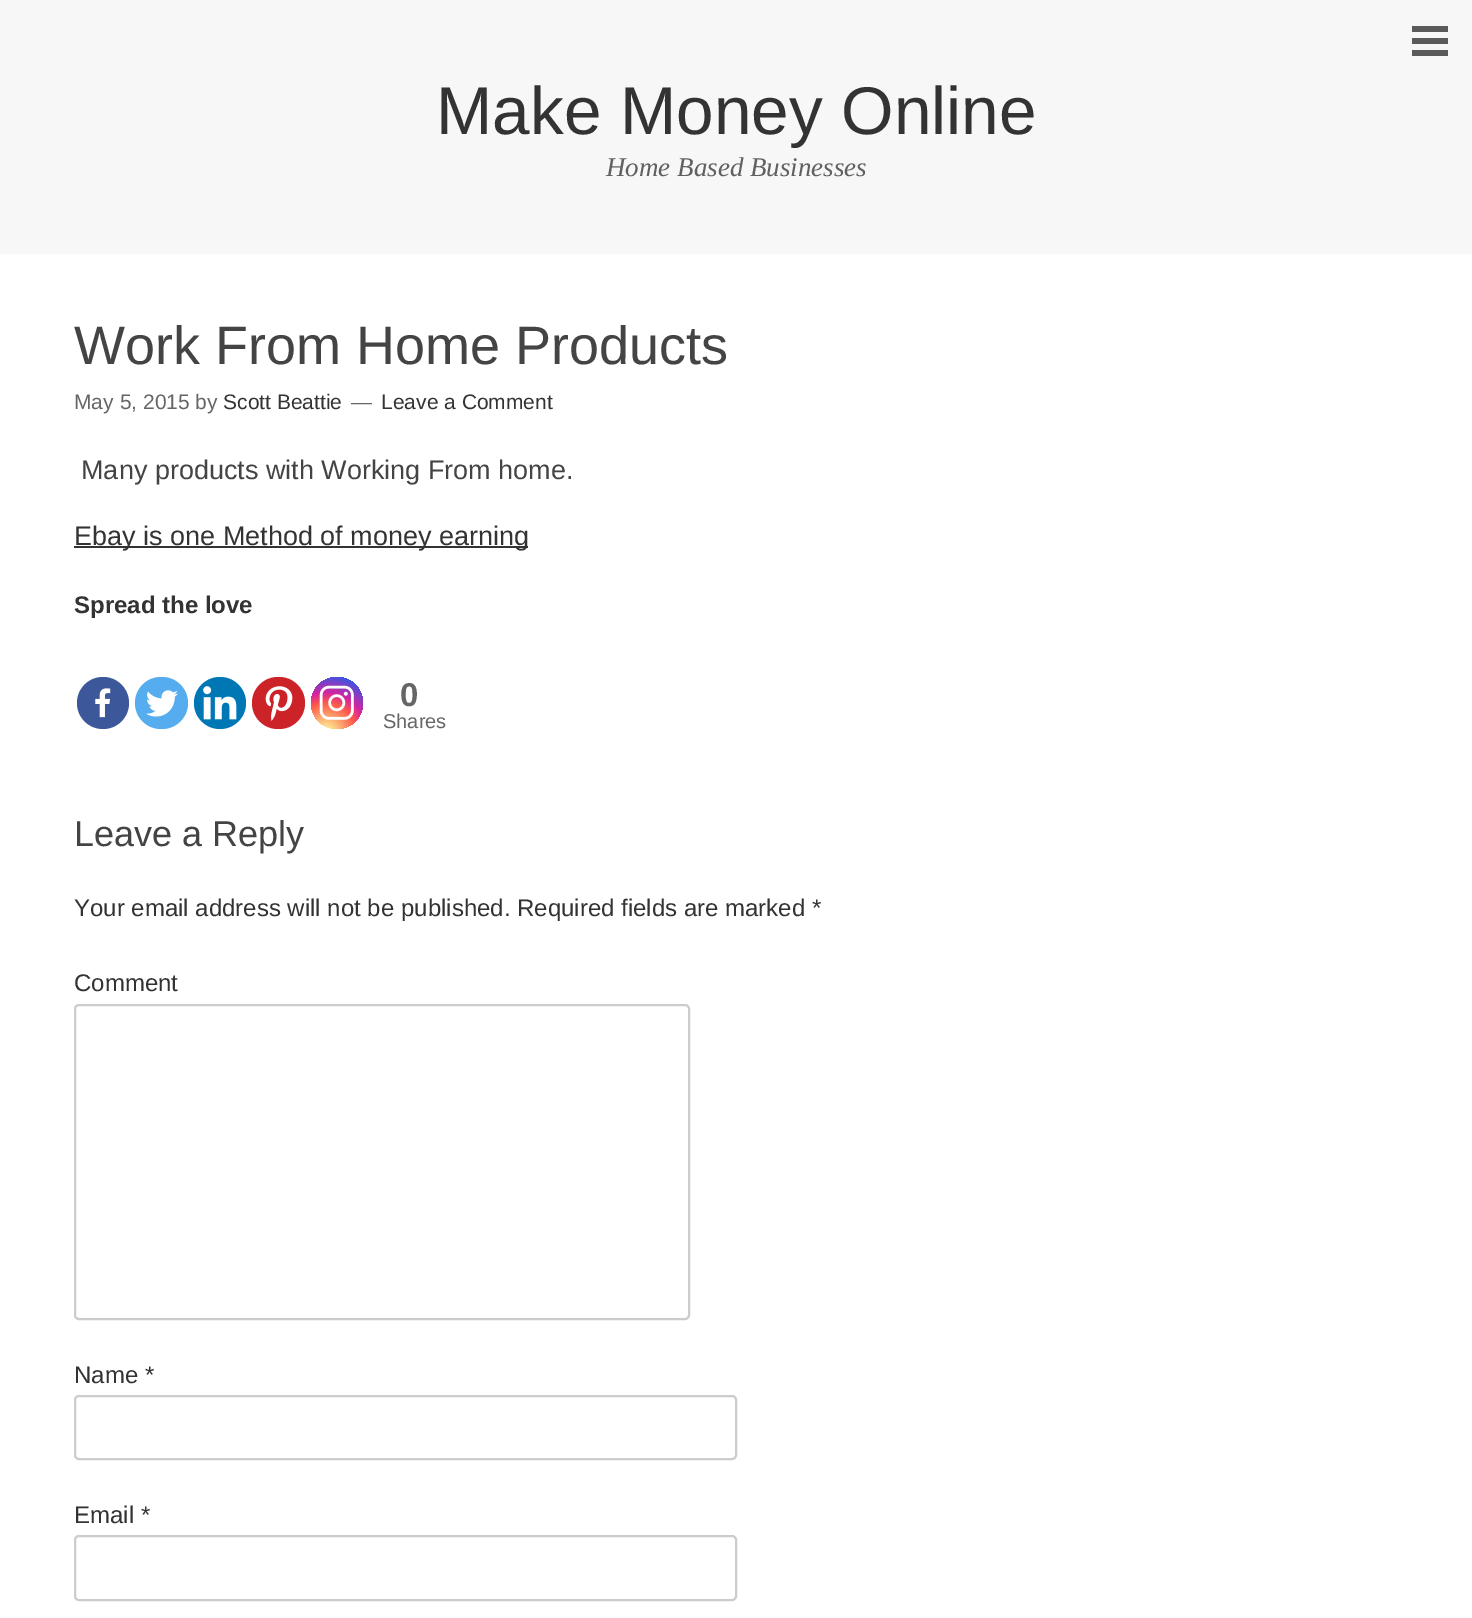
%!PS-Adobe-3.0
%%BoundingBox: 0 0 1472 1618
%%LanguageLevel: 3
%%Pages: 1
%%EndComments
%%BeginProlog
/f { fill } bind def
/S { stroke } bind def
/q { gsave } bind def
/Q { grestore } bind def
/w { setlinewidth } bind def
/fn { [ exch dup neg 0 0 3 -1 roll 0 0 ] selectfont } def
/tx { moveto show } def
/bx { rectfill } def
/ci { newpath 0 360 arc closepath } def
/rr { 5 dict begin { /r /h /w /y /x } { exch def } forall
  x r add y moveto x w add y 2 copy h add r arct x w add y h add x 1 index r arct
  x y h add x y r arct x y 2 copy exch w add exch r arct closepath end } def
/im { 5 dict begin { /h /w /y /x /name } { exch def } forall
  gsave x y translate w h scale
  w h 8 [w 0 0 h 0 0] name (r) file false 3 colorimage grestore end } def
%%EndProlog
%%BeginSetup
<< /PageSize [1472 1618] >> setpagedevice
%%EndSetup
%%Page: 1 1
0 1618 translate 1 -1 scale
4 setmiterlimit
1 setgray
0 0 1472 1618 bx
0.969 setgray
0 0 1472 254 bx
0.353 setgray
1412 26 36 6 bx
1412 50 36 6 bx
1412 38 36 6 bx
/LiberationSans-Regular 67.5 fn
0.2 setgray
(Make Money Online) 436 134 tx
/LiberationSerif-Italic 27 fn
0.376 setgray
(Home Based Businesses) 606 176 tx
/LiberationSans-Regular 54 fn
0.267 setgray
(Work From Home Products) 74 364 tx
/LiberationSans-Regular 21 fn
0.4 setgray
(May 5, 2015 by) 74 409 tx
0.2 setgray
(Scott Beattie) 223 409 tx
0.4 setgray
(—) 351 409 tx
0.2 setgray
(Leave a Comment) 381 409 tx
/LiberationSans-Regular 27 fn
0.267 setgray
(Many products with Working From home.) 81 479 tx
0.2 setgray
74 546 454 2 bx
(Ebay is one Method of money earning) 74 545 tx
/LiberationSans-Bold 24 fn
(Spread the love) 74 613 tx
0.235 0.345 0.604 setrgbcolor
103 703 26 ci f
(image0.raw) 95 688 16 30 im
0.333 0.675 0.933 setrgbcolor
135 677 53 52 26 rr f
(image1.raw) 146 690 32 27 im
0 0.467 0.71 setrgbcolor
220 703 26 ci f
(image2.raw) 203 686 34 34 im
0.8 0.137 0.161 setrgbcolor
252 677 53 52 26 rr f
(image3.raw) 265 686 28 35 im
q 337 703 26 ci clip newpath 326 733 translate 67 67 scale
<< /ShadingType 3 /ColorSpace /DeviceRGB /Coords [0 0 0 0 0 1] /Extend [true true] /Function << /FunctionType 3 /Domain [0 1] /Functions [<< /FunctionType 2 /Domain [0 1] /C0 [0.992 0.957 0.592] /C1 [0.992 0.957 0.592] /N 1 >> << /FunctionType 2 /Domain [0 1] /C0 [0.992 0.957 0.592] /C1 [0.992 0.349 0.286] /N 1 >> << /FunctionType 2 /Domain [0 1] /C0 [0.992 0.349 0.286] /C1 [0.839 0.141 0.624] /N 1 >> << /FunctionType 2 /Domain [0 1] /C0 [0.839 0.141 0.624] /C1 [0.157 0.353 0.922] /N 1 >> << /FunctionType 2 /Domain [0 1] /C0 [0.157 0.353 0.922] /C1 [0.157 0.353 0.922] /N 1 >>] /Bounds [0.05 0.45 0.6 0.9] /Encode [0 1 0 1 0 1 0 1 0 1] >> >> shfill Q
(image4.raw) 319 685 35 35 im
/LiberationSans-Bold 33 fn
0.4 setgray
(0) 400 706 tx
/LiberationSans-Regular 20 fn
(Shares) 383 728 tx
/LiberationSans-Regular 36 fn
0.267 setgray
(Leave a Reply) 74 846 tx
/LiberationSans-Regular 24 fn
0.2 setgray
(Your email address will not be published. Required fields are marked *) 74 916 tx
(Comment) 74 991 tx
0.8 setgray
2 w
75 1005 614 314 4 rr S
0.2 setgray
(Name *) 74 1383 tx
0.8 setgray
75 1396 661 63 4 rr S
0.2 setgray
(Email *) 74 1523 tx
0.8 setgray
75 1536 661 64 4 rr S
showpage
%%EOF
